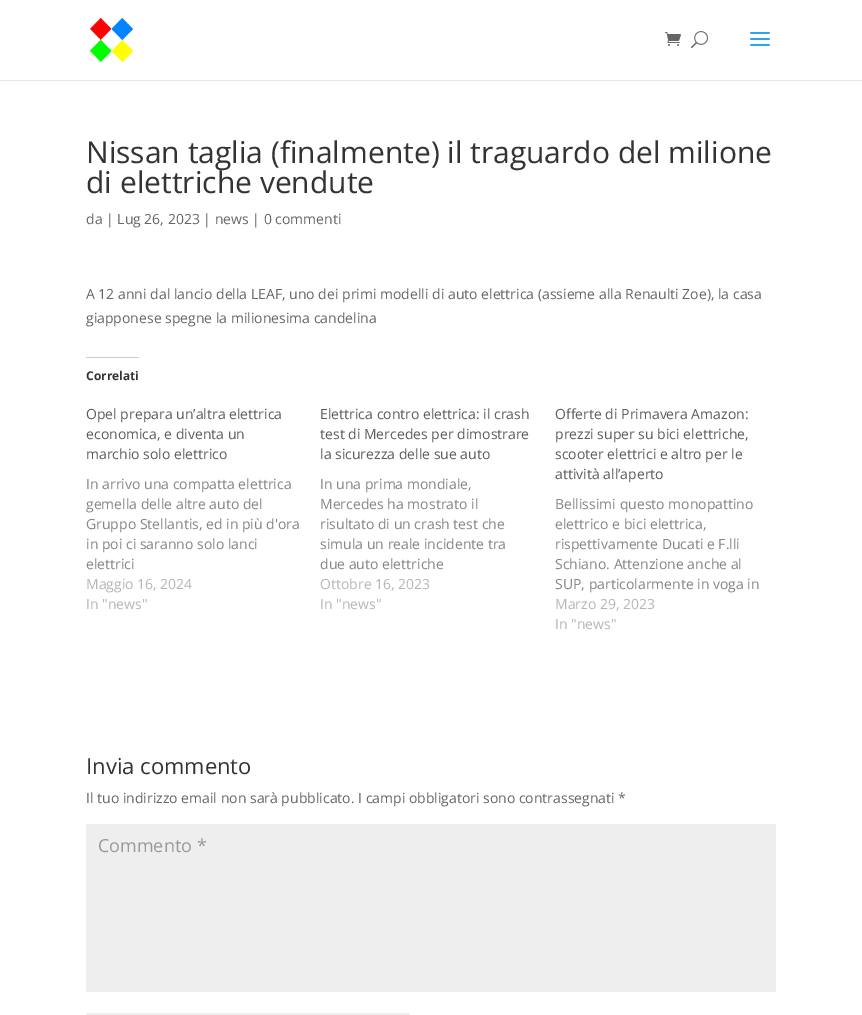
%!PS-Adobe-3.0
%%BoundingBox: 0 0 862 1015
%%LanguageLevel: 3
%%Pages: 1
%%EndComments
%%BeginProlog
/fn { [ exch dup neg 0 0 3 -1 roll 0 0 ] selectfont } def
/tx { moveto show } def
/bx { rectfill } def
/im { 5 dict begin { /h /w /y /x /name } { exch def } forall
  gsave x y translate w h scale
  w h 8 [w 0 0 h 0 0] name (r) file false 3 colorimage grestore end } def
%%EndProlog
%%BeginSetup
<< /PageSize [862 1015] >> setpagedevice
%%EndSetup
%%Page: 1 1
0 1015 translate 1 -1 scale
4 setmiterlimit
1 setgray
0 0 862 1015 bx
0.902 setgray
0 80 862 1 bx
(image0.raw) 90 18 43 44 im
(image1.raw) 665 32 16 14 im
(image2.raw) 691 31 17 18 im
(image3.raw) 750 32 20 14 im
/OpenSans-Regular 30 fn
0.2 setgray
(Nissan taglia \(finalmente\) il traguardo del milione) 86 163 tx
(di elettriche vendute) 86 193 tx
/OpenSans-Regular 14 fn
0.4 setgray
(da | Lug 26, 2023 | news | 0 commenti) 86 224 tx
(A 12 anni dal lancio della LEAF, uno dei primi modelli di auto elettrica \(assieme alla Renaulti Zoe\), la casa) 86 299 tx
(giapponese spegne la milionesima candelina) 86 323 tx
0.8 setgray
86 357 53 1 bx
/OpenSans-Bold 12 fn
0.2 setgray
(Correlati) 86 380 tx
/OpenSans-Regular 14 fn
0.361 setgray
(Opel prepara un’altra elettrica) 86 419 tx
(economica, e diventa un) 86 439 tx
(marchio solo elettrico) 86 459 tx
0.522 setgray
(In arrivo una compatta elettrica) 86 489 tx
(gemella delle altre auto del) 86 509 tx
(Gruppo Stellantis, ed in più d'ora) 86 529 tx
(in poi ci saranno solo lanci) 86 549 tx
(elettrici) 86 569 tx
0.714 setgray
(Maggio 16, 2024) 86 589 tx
(In "news") 86 609 tx
0.361 setgray
(Elettrica contro elettrica: il crash) 320 419 tx
(test di Mercedes per dimostrare) 320 439 tx
(la sicurezza delle sue auto) 320 459 tx
0.522 setgray
(In una prima mondiale,) 320 489 tx
(Mercedes ha mostrato il) 320 509 tx
(risultato di un crash test che) 320 529 tx
(simula un reale incidente tra) 320 549 tx
(due auto elettriche) 320 569 tx
0.714 setgray
(Ottobre 16, 2023) 320 589 tx
(In "news") 320 609 tx
0.361 setgray
(Offerte di Primavera Amazon:) 555 419 tx
(prezzi super su bici elettriche,) 555 439 tx
(scooter elettrici e altro per le) 555 459 tx
(attività all’aperto) 555 479 tx
0.522 setgray
(Bellissimi questo monopattino) 555 509 tx
(elettrico e bici elettrica,) 555 529 tx
(rispettivamente Ducati e F.lli) 555 549 tx
(Schiano. Attenzione anche al) 555 569 tx
(SUP, particolarmente in voga in) 555 589 tx
0.714 setgray
(Marzo 29, 2023) 555 609 tx
(In "news") 555 629 tx
/OpenSans-Regular 22 fn
0.2 setgray
(Invia commento) 86 774 tx
/OpenSans-Regular 14 fn
0.4 setgray
(Il tuo indirizzo email non sarà pubblicato. I campi obbligatori sono contrassegnati *) 86 803 tx
0.933 setgray
86 824 690 168 bx
/OpenSans-Regular 18 fn
0.6 setgray
(Commento *) 98 852 tx
0.933 setgray
86 1013 324 2 bx
showpage
%%EOF
